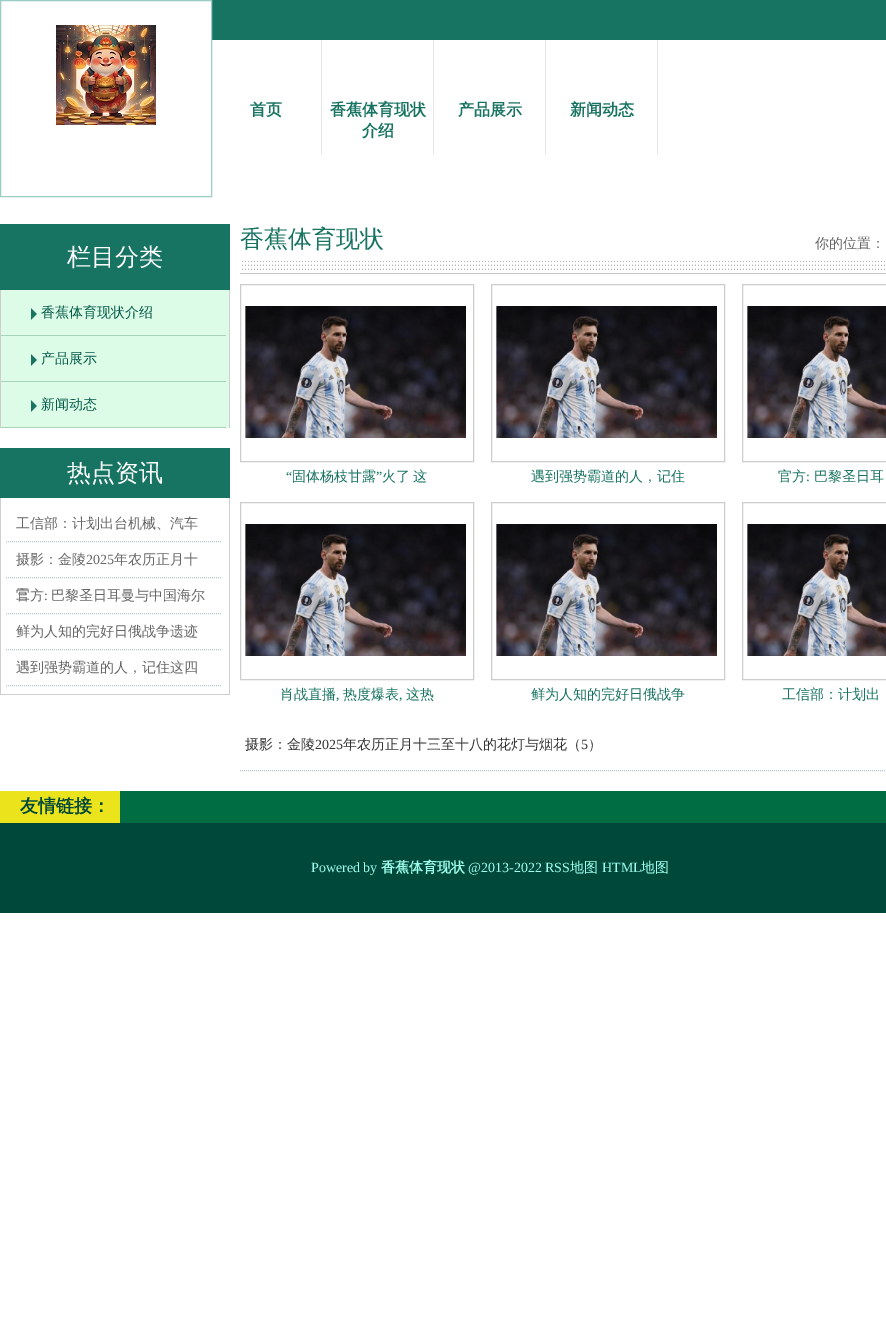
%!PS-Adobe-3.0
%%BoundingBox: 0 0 886 1335
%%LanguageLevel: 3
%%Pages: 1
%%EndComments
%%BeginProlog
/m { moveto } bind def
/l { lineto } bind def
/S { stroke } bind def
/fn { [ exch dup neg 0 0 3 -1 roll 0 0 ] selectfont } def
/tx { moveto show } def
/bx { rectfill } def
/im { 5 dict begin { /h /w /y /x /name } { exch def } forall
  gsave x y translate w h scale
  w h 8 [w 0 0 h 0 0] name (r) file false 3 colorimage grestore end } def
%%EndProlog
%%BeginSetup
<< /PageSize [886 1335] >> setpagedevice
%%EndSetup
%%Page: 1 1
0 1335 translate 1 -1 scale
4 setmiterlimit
1 setgray
0 0 886 1335 bx
0.094 0.455 0.384 setrgbcolor
212 0 674 40 bx
0.604 0.804 0.765 setrgbcolor
0.5 0.5 211 196 rectstroke
(image0.raw) 56 25 100 100 im
0.91 setgray
321 40 1 115 bx
/WenQuanYiZenHei-Bold 16 fn
0.094 0.455 0.384 setrgbcolor
(首页) 250 115 tx
0.91 setgray
433 40 1 115 bx
0.094 0.455 0.384 setrgbcolor
(香蕉体育现状) 330 115 tx
(介绍) 362 136 tx
0.91 setgray
545 40 1 115 bx
0.094 0.455 0.384 setrgbcolor
(产品展示) 458 115 tx
0.91 setgray
657 40 1 115 bx
0.094 0.455 0.384 setrgbcolor
(新闻动态) 570 115 tx
0 224 230 66 bx
/WenQuanYiZenHei-Medium 24 fn
1 setgray
(栏目分类) 67 265 tx
0.867 0.988 0.91 setrgbcolor
1 290 228 138 bx
0.808 setgray
229 290 1 138 bx
0 290 1 138 bx
(image1.raw) 31 308 6 12 im
0.663 0.831 0.722 setrgbcolor
1 335 225 1 bx
/WenQuanYiZenHei-Medium 14 fn
0.008 0.349 0.282 setrgbcolor
(香蕉体育现状介绍) 41 317 tx
(image1.raw) 31 354 6 12 im
0.663 0.831 0.722 setrgbcolor
1 381 225 1 bx
0.008 0.349 0.282 setrgbcolor
(产品展示) 41 363 tx
(image1.raw) 31 400 6 12 im
0.663 0.831 0.722 setrgbcolor
1 427 225 1 bx
0.008 0.349 0.282 setrgbcolor
(新闻动态) 41 409 tx
0.094 0.455 0.384 setrgbcolor
0 448 230 50 bx
/WenQuanYiZenHei-Medium 24 fn
1 setgray
(热点资讯) 67 481 tx
0.808 setgray
229 498 1 197 bx
0 694 230 1 bx
0 498 1 197 bx
0.69 0.788 0.82 setrgbcolor
[1 1] 0 setdash
6 541.5 m 221 541.5 l S
/WenQuanYiZenHei-Medium 14 fn
0.4 setgray
(工信部：计划出台机械、汽车) 16 528 tx
0.69 0.788 0.82 setrgbcolor
6 577.5 m 221 577.5 l S
0.4 setgray
(摄影：金陵) 16 564 tx
/LiberationSerif-Regular 14 fn
(2025) 86 564 tx
/WenQuanYiZenHei-Medium 14 fn
(年农历正月十) 114 564 tx
(三) 16 599 tx
0.69 0.788 0.82 setrgbcolor
6 613.5 m 221 613.5 l S
0.4 setgray
(官方) 16 600 tx
/LiberationSerif-Regular 14 fn
(:) 44 600 tx
/WenQuanYiZenHei-Medium 14 fn
(巴黎圣日耳曼与中国海尔) 51 600 tx
0.69 0.788 0.82 setrgbcolor
6 649.5 m 221 649.5 l S
0.4 setgray
(鲜为人知的完好日俄战争遗迹) 16 636 tx
0.69 0.788 0.82 setrgbcolor
6 685.5 m 221 685.5 l S
0.4 setgray
(遇到强势霸道的人，记住这四) 16 672 tx
(image2.raw) 240 261 646 13 im
/WenQuanYiZenHei-Medium 24 fn
0.094 0.455 0.384 setrgbcolor
(香蕉体育现状) 240 247 tx
/WenQuanYiZenHei-Medium 14 fn
0.4 setgray
(你的位置：) 815 248 tx
0.804 setgray
[] 0 setdash
240.5 284.5 233 177 rectstroke
(image3.raw) 245 306 221 132 im
/LiberationSerif-Regular 14 fn
0.094 0.455 0.384 setrgbcolor
(“) 286 481 tx
/WenQuanYiZenHei-Medium 14 fn
(固体杨枝甘露) 292 481 tx
/LiberationSerif-Regular 14 fn
(”) 376 481 tx
/WenQuanYiZenHei-Medium 14 fn
382 481 m -1 0 32 (火了 这) widthshow
0.804 setgray
491.5 284.5 233 177 rectstroke
(image3.raw) 496 306 221 132 im
0.094 0.455 0.384 setrgbcolor
(遇到强势霸道的人，记住) 531 481 tx
0.804 setgray
742.5 284.5 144 177 rectstroke
(image4.raw) 747 306 139 132 im
0.094 0.455 0.384 setrgbcolor
(官方) 778 481 tx
/LiberationSerif-Regular 14 fn
(:) 806 481 tx
/WenQuanYiZenHei-Medium 14 fn
(巴黎圣日耳) 814 481 tx
0.804 setgray
240.5 502.5 233 177 rectstroke
(image5.raw) 245 524 221 132 im
0.094 0.455 0.384 setrgbcolor
(肖战直播) 280 699 tx
/LiberationSerif-Regular 14 fn
(,) 336 699 tx
/WenQuanYiZenHei-Medium 14 fn
(热度爆表) 343 699 tx
/LiberationSerif-Regular 14 fn
(,) 399 699 tx
/WenQuanYiZenHei-Medium 14 fn
(这热) 406 699 tx
0.804 setgray
491.5 502.5 233 177 rectstroke
(image5.raw) 496 524 221 132 im
0.094 0.455 0.384 setrgbcolor
(鲜为人知的完好日俄战争) 531 699 tx
0.804 setgray
742.5 502.5 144 177 rectstroke
(image6.raw) 747 524 139 132 im
0.094 0.455 0.384 setrgbcolor
(工信部：计划出) 782 699 tx
0.69 0.788 0.82 setrgbcolor
[1 1] 0 setdash
240 770.5 m 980 770.5 l S
0.2 setgray
(摄影：金陵) 245 749 tx
/LiberationSerif-Regular 14 fn
(2025) 315 749 tx
/WenQuanYiZenHei-Medium 14 fn
(年农历正月十三至十八的花灯与烟花（) 343 749 tx
/LiberationSerif-Regular 14 fn
(5) 581 749 tx
/WenQuanYiZenHei-Medium 14 fn
(）) 588 749 tx
0 0.282 0.227 setrgbcolor
0 823 886 90 bx
0 0.431 0.259 setrgbcolor
120 791 766 32 bx
0.922 0.894 0.114 setrgbcolor
0 791 120 32 bx
/WenQuanYiZenHei-Bold 18 fn
0 0.282 0.227 setrgbcolor
(友情链接：) 20 812 tx
/LiberationSerif-Regular 14 fn
0.62 1 0.925 setrgbcolor
(Powered by) 311 872 tx
/WenQuanYiZenHei-Bold 14 fn
(香蕉体育现状) 381 872 tx
/LiberationSerif-Regular 14 fn
(@2013-2022 RSS) 468 872 tx
/WenQuanYiZenHei-Medium 14 fn
(地图) 570 872 tx
/LiberationSerif-Regular 14 fn
(HTML) 602 872 tx
/WenQuanYiZenHei-Medium 14 fn
(地图) 641 872 tx
showpage
%%EOF
